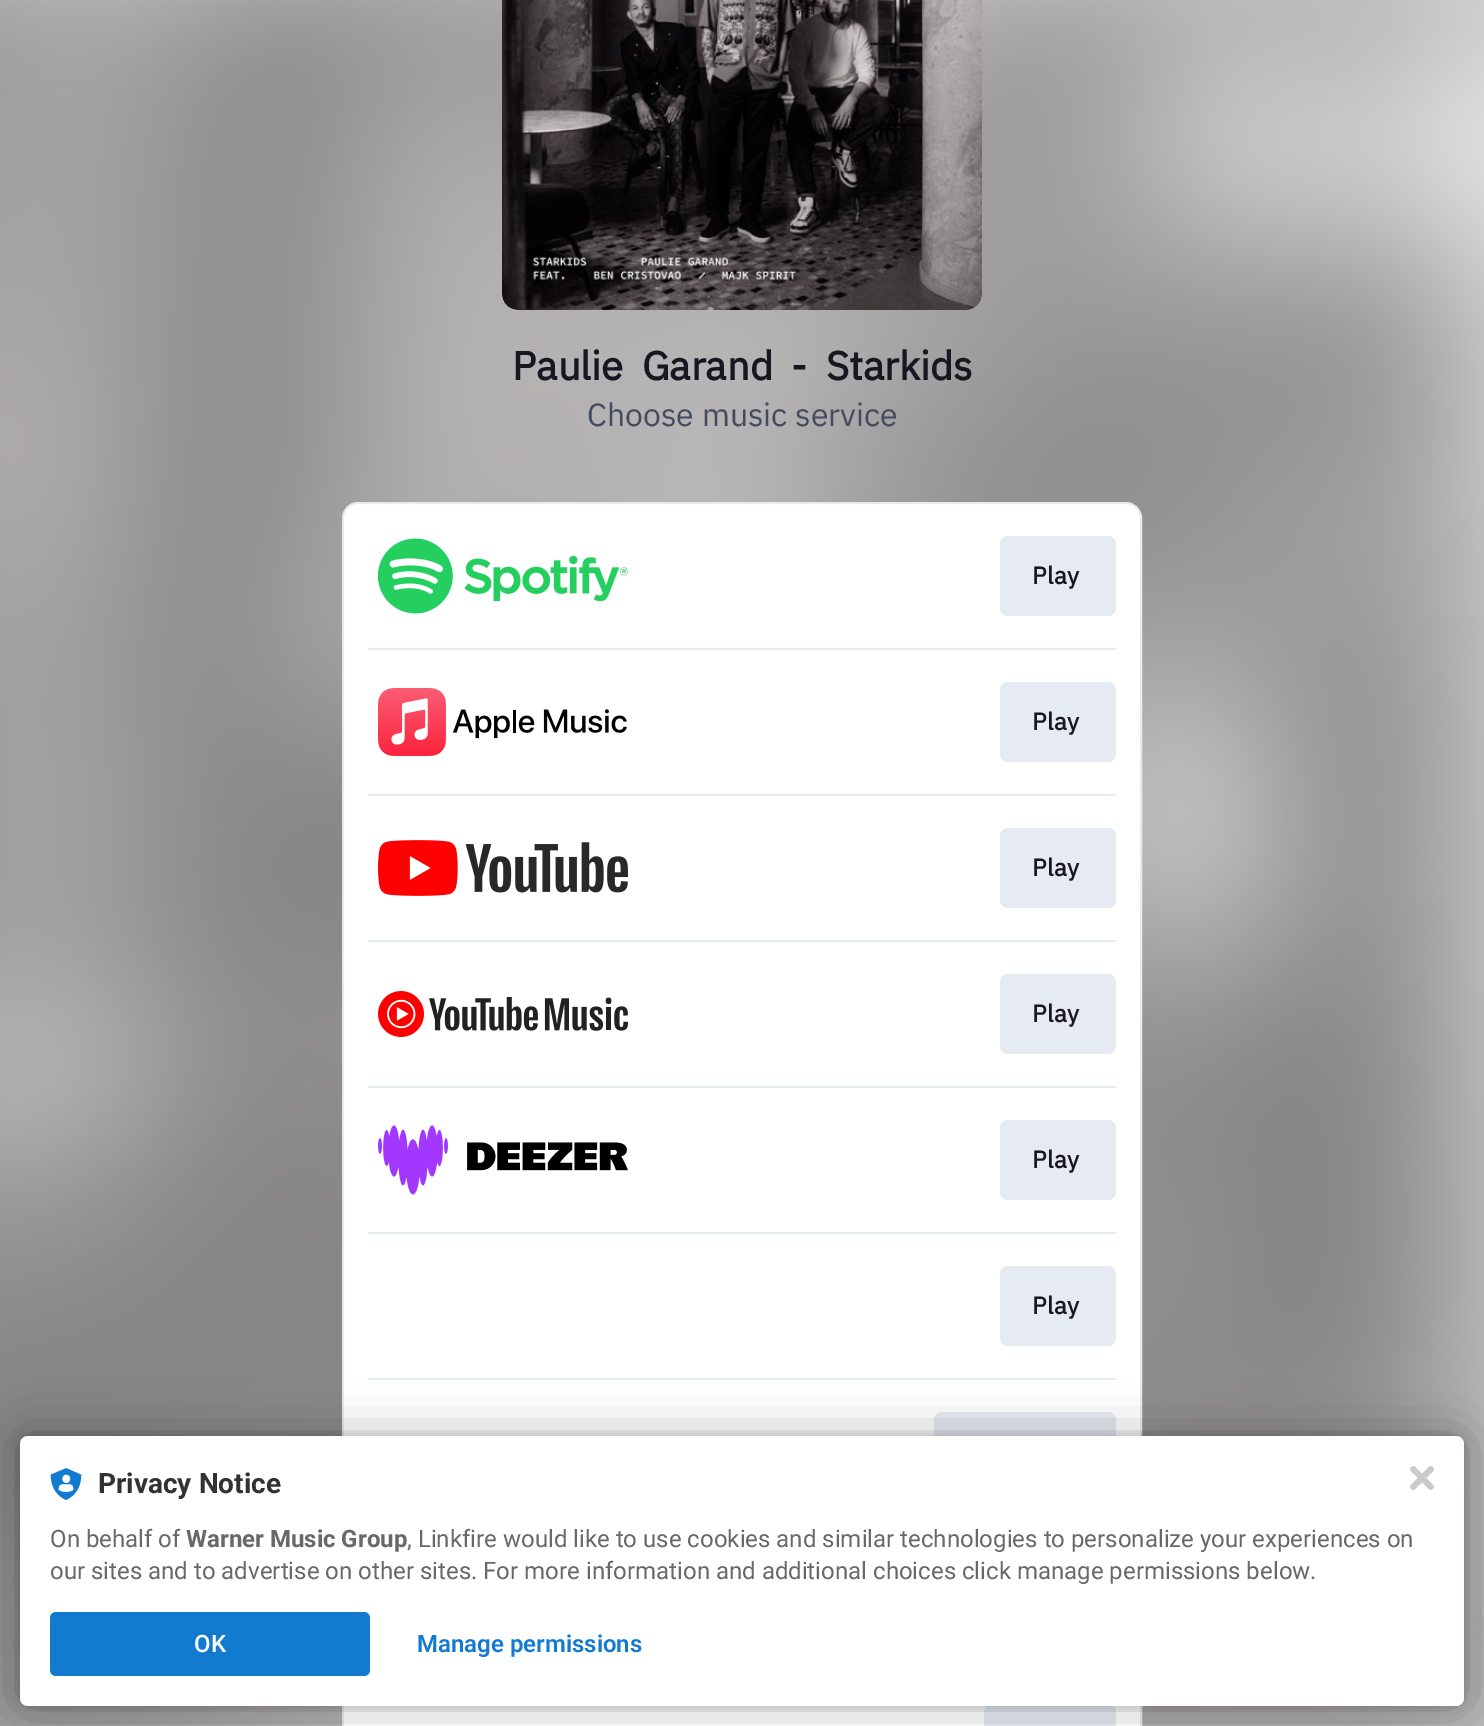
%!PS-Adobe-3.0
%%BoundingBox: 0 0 1484 1726
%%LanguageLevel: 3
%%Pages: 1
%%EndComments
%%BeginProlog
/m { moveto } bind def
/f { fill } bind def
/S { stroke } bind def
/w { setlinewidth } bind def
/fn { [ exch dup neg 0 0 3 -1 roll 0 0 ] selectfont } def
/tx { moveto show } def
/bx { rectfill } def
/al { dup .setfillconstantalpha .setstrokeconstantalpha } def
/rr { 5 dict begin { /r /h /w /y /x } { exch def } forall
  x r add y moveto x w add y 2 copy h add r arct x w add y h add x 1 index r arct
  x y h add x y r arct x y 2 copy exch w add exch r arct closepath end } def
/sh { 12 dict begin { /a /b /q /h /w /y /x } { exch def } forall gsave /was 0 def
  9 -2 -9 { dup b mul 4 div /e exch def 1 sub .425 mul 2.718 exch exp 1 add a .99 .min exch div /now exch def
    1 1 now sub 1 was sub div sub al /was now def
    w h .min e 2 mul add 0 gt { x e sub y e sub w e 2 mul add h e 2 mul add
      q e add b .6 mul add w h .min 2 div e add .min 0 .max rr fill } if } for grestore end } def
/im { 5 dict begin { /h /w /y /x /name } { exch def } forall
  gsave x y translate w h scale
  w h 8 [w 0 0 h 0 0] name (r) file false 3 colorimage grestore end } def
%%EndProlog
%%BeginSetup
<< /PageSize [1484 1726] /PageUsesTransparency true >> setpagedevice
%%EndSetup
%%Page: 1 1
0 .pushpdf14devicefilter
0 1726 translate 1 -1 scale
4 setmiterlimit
1 setgray
0 0 1484 1726 bx
(image0.raw) 0 0 1484 1726 im
(image1.raw) 502 0 480 310 im
/IBMPlexSans-Bold 40 fn
0.094 0.09 0.129 setrgbcolor
512 380 m 9 0 32 (Paulie Garand - Starkids) widthshow
/IBMPlexSans-Regular 32 fn
0.271 0.294 0.373 setrgbcolor
(Choose music service) 587 426 tx
0.902 0.918 0.949 setrgbcolor
2 w
343 503 798 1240 15 rr S
1 setgray
344 504 796 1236 14 rr f
(image2.raw) 378 538 250 76 im
0.902 0.918 0.949 setrgbcolor
1000 536 116 80 8 rr f
/IBMPlexSans-Bold 24 fn
0.094 0.09 0.129 setrgbcolor
1032 584 m 0.5 0 (Play) ashow
0.902 0.918 0.949 setrgbcolor
368 648 748 2 bx
(image3.raw) 378 688 249 68 im
1000 682 116 80 8 rr f
0.094 0.09 0.129 setrgbcolor
1032 730 m 0.5 0 (Play) ashow
0.902 0.918 0.949 setrgbcolor
368 794 748 2 bx
(image4.raw) 378 840 250 56 im
1000 828 116 80 8 rr f
0.094 0.09 0.129 setrgbcolor
1032 876 m 0.5 0 (Play) ashow
0.902 0.918 0.949 setrgbcolor
368 940 748 2 bx
(image5.raw) 378 991 250 46 im
1000 974 116 80 8 rr f
0.094 0.09 0.129 setrgbcolor
1032 1022 m 0.5 0 (Play) ashow
0.902 0.918 0.949 setrgbcolor
368 1086 748 2 bx
(image6.raw) 378 1125 250 70 im
1000 1120 116 80 8 rr f
0.094 0.09 0.129 setrgbcolor
1032 1168 m 0.5 0 (Play) ashow
0.902 0.918 0.949 setrgbcolor
368 1232 748 2 bx
1000 1266 116 80 8 rr f
0.094 0.09 0.129 setrgbcolor
1032 1314 m 0.5 0 (Play) ashow
0.902 0.918 0.949 setrgbcolor
368 1378 748 2 bx
934 1412 182 80 8 rr f
984 1704 132 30 8 rr f
0 setgray
20 1436 1444 270 8 4 0.12 sh
20 1436 1444 270 8 24 0.3 sh
1 setgray
20 1436 1444 270 8 rr f
(image7.raw) 50 1468 32 32 im
/Roboto-Bold 28 fn
0.196 setgray
(Privacy Notice) 98 1493 tx
/Roboto-Regular 24 fn
0.408 setgray
(On behalf of) 50 1547 tx
/Roboto-Bold 24 fn
(Warner Music Group) 186 1547 tx
/Roboto-Regular 24 fn
(, Linkfire would like to use cookies and similar technologies to personalize your experiences on) 407 1547 tx
(our sites and to advertise on other sites. For more information and additional choices click manage permissions below.) 50 1579 tx
0.075 0.482 0.812 setrgbcolor
50 1612 320 64 6 rr f
/Roboto-Medium 24 fn
1 setgray
(OK) 194 1652 tx
/Roboto-SemiBold 24 fn
0.075 0.482 0.812 setrgbcolor
(Manage permissions) 417 1652 tx
(image8.raw) 1410 1466 24 24 im
.poppdf14devicefilter showpage
%%EOF
